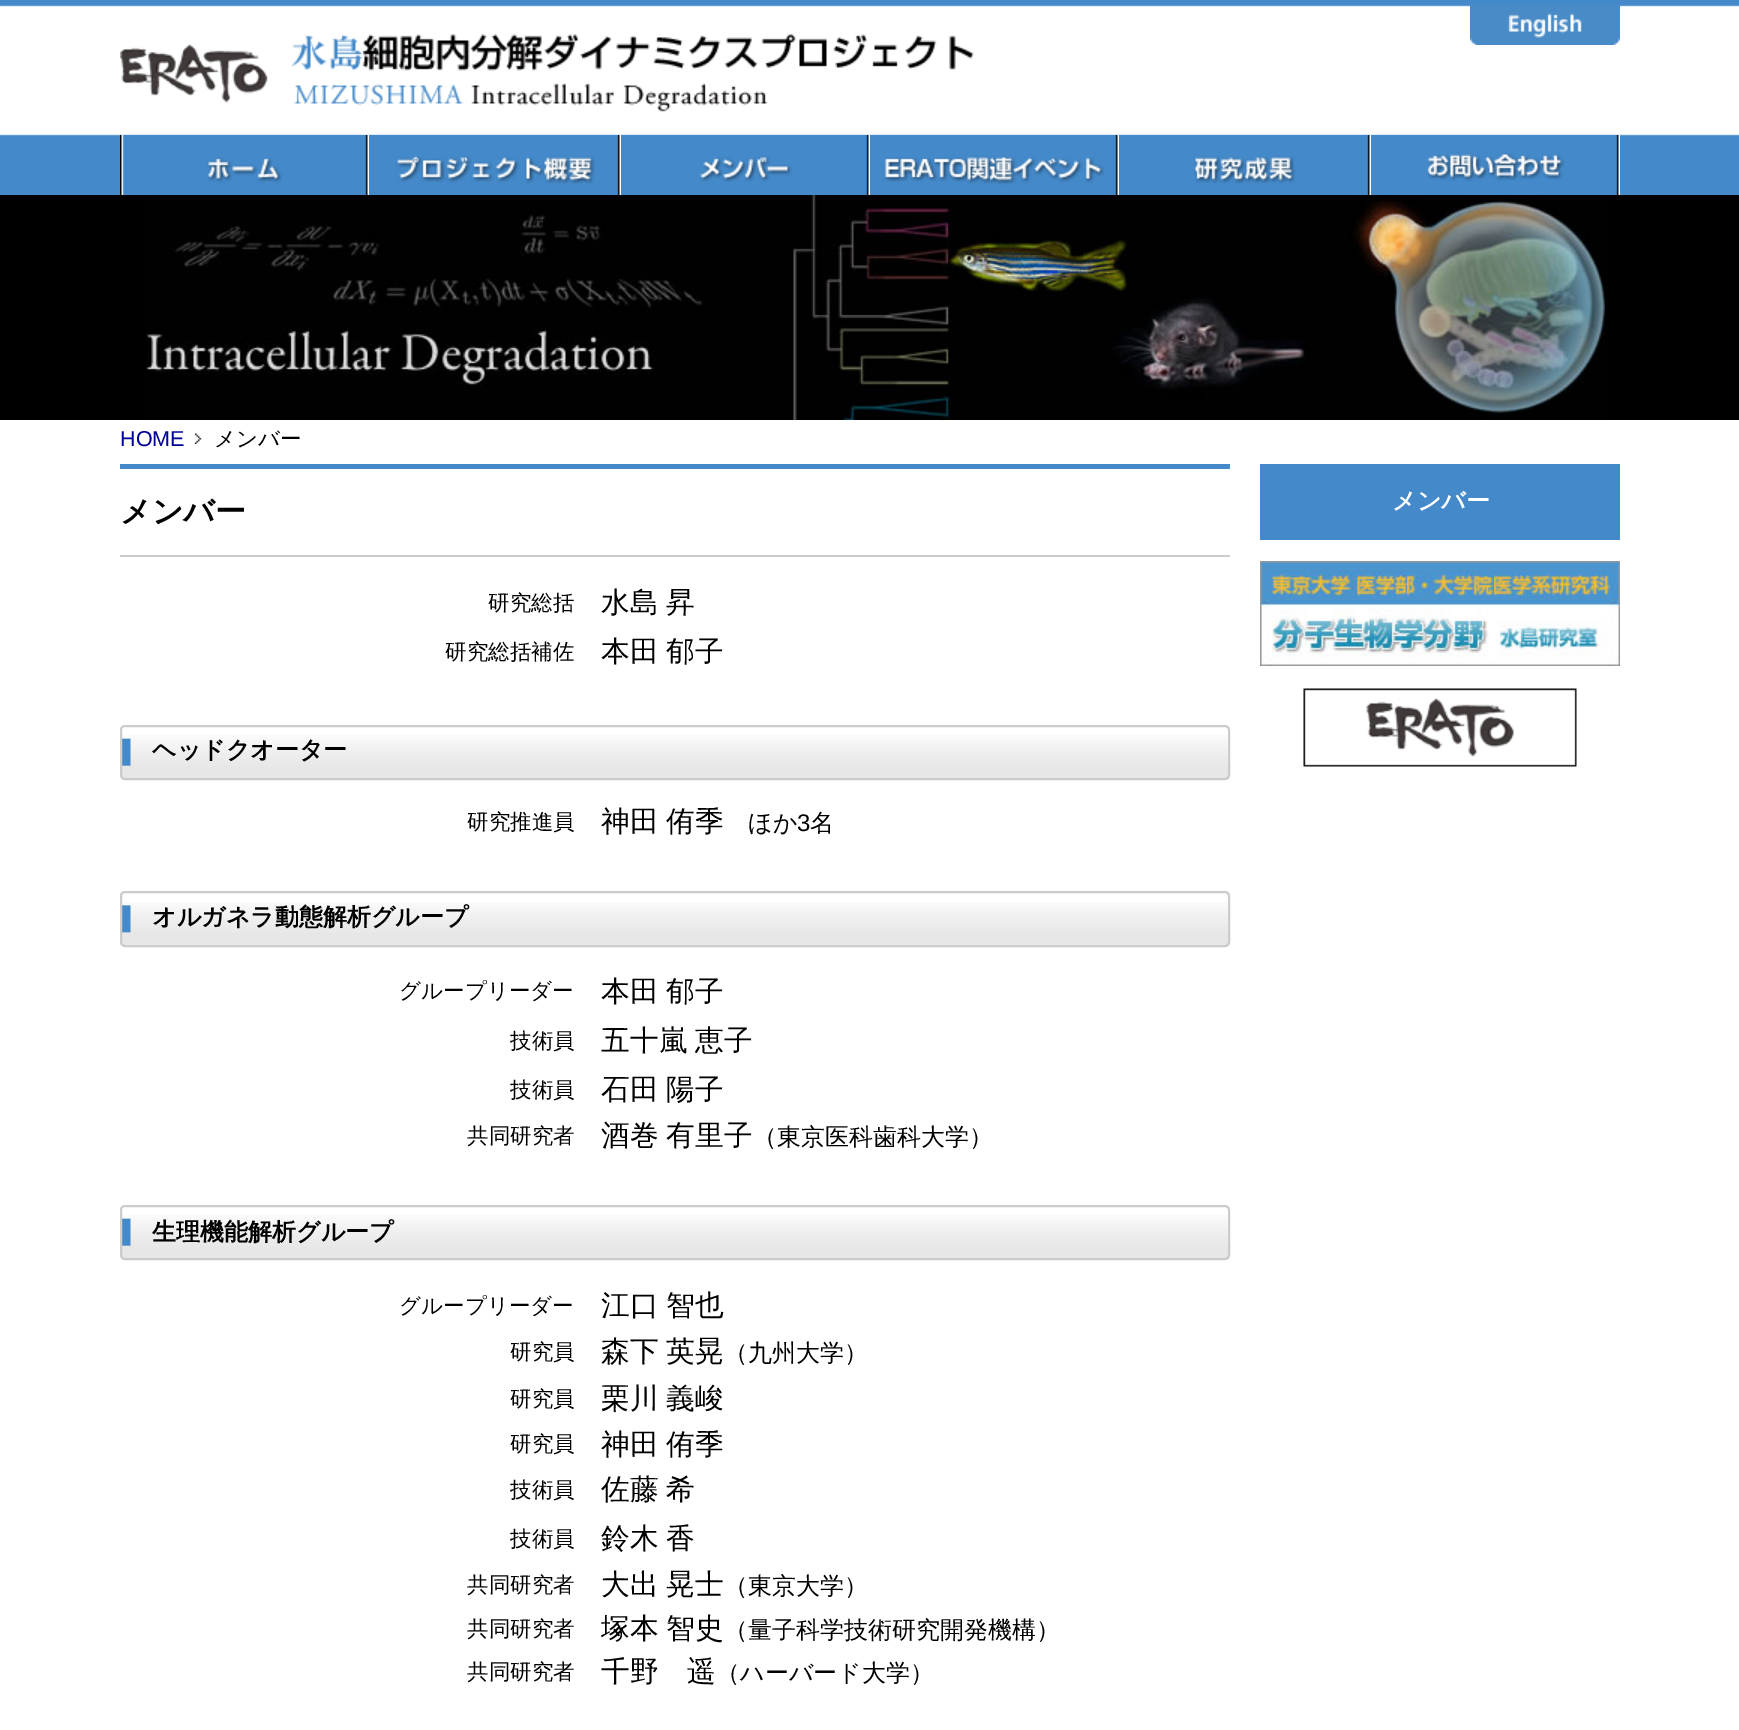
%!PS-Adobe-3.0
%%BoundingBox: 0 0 1739 1730
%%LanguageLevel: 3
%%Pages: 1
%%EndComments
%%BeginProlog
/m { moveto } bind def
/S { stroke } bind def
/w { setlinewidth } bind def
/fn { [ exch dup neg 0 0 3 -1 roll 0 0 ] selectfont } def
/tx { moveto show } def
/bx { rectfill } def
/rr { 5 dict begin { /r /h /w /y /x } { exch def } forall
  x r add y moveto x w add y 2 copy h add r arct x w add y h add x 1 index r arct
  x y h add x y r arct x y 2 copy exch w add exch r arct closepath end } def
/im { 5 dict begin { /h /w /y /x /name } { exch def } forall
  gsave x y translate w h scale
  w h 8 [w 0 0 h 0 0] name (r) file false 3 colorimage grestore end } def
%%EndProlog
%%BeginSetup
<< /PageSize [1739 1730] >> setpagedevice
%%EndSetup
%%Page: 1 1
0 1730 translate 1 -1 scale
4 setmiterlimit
1 setgray
0 0 1739 1730 bx
(image0.raw) 0 0 1739 195 im
(image1.raw) 1470 5 150 40 im
(image2.raw) 120 34 854 78 im
368 135 1 60 bx
(image3.raw) 120 135 248 60 im
620 135 1 60 bx
(image4.raw) 369 135 251 60 im
869 135 1 60 bx
(image5.raw) 621 135 248 60 im
1118 135 1 60 bx
(image6.raw) 870 135 248 60 im
1370 135 1 60 bx
(image7.raw) 1119 135 251 60 im
1619 135 1 60 bx
(image8.raw) 1371 135 248 60 im
0 setgray
0 195 1739 225 bx
(image9.raw) 146 195 1459 225 im
/LiberationSans-Regular 21.5 fn
0 0 0.6 setrgbcolor
(HOME) 120 446 tx
(image10.raw) 194 433 8 11 im
/WenQuanYiZenHei-Medium 21.5 fn
0 setgray
(メンバー) 214 446 tx
0.267 0.537 0.788 setrgbcolor
1260 464 360 76 bx
/WenQuanYiZenHei-Bold 24 fn
1 setgray
(メンバー) 1392 509 tx
(image11.raw) 1260 561 360 105 im
(image12.raw) 1303 688 274 79 im
0.267 0.537 0.788 setrgbcolor
120 464 1110 5 bx
0.8 setgray
120 555 1110 2 bx
/WenQuanYiZenHei-Bold 31 fn
0 setgray
(メンバー) 120 522 tx
/WenQuanYiZenHei-Medium 21.5 fn
(研究総括) 488 610 tx
/WenQuanYiZenHei-Medium 28.75 fn
601 612 m -1 0 32 (水島 昇) widthshow
/WenQuanYiZenHei-Medium 21.5 fn
(研究総括補佐) 445 659 tx
/WenQuanYiZenHei-Medium 28.75 fn
601 661 m -1 0 32 (本田 郁子) widthshow
(image13.raw) 121 735 1109 45 im
0.8 setgray
2 w
121 726 1108 53 4 rr S
/WenQuanYiZenHei-Bold 24 fn
0 setgray
(ヘッドクオーター) 152 758 tx
/WenQuanYiZenHei-Medium 21.5 fn
(研究推進員) 467 829 tx
/WenQuanYiZenHei-Medium 28.75 fn
601 831 m -1 0 32 (神田 侑季) widthshow
/WenQuanYiZenHei-Medium 24 fn
(ほか) 748 831 tx
/LiberationSans-Regular 24 fn
(3) 797 831 tx
/WenQuanYiZenHei-Medium 24 fn
(名) 810 831 tx
(image14.raw) 121 902 1109 45 im
0.8 setgray
121 892 1108 54 4 rr S
/WenQuanYiZenHei-Bold 24 fn
0 setgray
(オルガネラ動態解析グループ) 152 925 tx
/WenQuanYiZenHei-Medium 21.5 fn
(グループリーダー) 399 998 tx
/WenQuanYiZenHei-Medium 28.75 fn
601 1001 m -1 0 32 (本田 郁子) widthshow
/WenQuanYiZenHei-Medium 21.5 fn
(技術員) 510 1048 tx
/WenQuanYiZenHei-Medium 28.75 fn
601 1050 m -1 0 32 (五十嵐 恵子) widthshow
/WenQuanYiZenHei-Medium 21.5 fn
(技術員) 510 1097 tx
/WenQuanYiZenHei-Medium 28.75 fn
601 1099 m -1 0 32 (石田 陽子) widthshow
/WenQuanYiZenHei-Medium 21.5 fn
(共同研究者) 467 1143 tx
/WenQuanYiZenHei-Medium 28.75 fn
601 1145 m -1 0 32 (酒巻 有里子) widthshow
/WenQuanYiZenHei-Medium 24 fn
(（東京医科歯科大学）) 753 1145 tx
(image13.raw) 121 1215 1109 45 im
0.8 setgray
121 1206 1108 53 4 rr S
/WenQuanYiZenHei-Bold 24 fn
0 setgray
(生理機能解析グループ) 152 1240 tx
/WenQuanYiZenHei-Medium 21.5 fn
(グループリーダー) 399 1313 tx
/WenQuanYiZenHei-Medium 28.75 fn
601 1315 m -1 0 32 (江口 智也) widthshow
/WenQuanYiZenHei-Medium 21.5 fn
(研究員) 510 1359 tx
/WenQuanYiZenHei-Medium 28.75 fn
601 1361 m -1 0 32 (森下 英晃) widthshow
/WenQuanYiZenHei-Medium 24 fn
(（九州大学）) 724 1361 tx
/WenQuanYiZenHei-Medium 21.5 fn
(研究員) 510 1406 tx
/WenQuanYiZenHei-Medium 28.75 fn
601 1408 m -1 0 32 (栗川 義峻) widthshow
/WenQuanYiZenHei-Medium 21.5 fn
(研究員) 510 1451 tx
/WenQuanYiZenHei-Medium 28.75 fn
601 1454 m -1 0 32 (神田 侑季) widthshow
/WenQuanYiZenHei-Medium 21.5 fn
(技術員) 510 1497 tx
/WenQuanYiZenHei-Medium 28.75 fn
601 1499 m -1 0 32 (佐藤 希) widthshow
/WenQuanYiZenHei-Medium 21.5 fn
(技術員) 510 1546 tx
/WenQuanYiZenHei-Medium 28.75 fn
601 1548 m -1 0 32 (鈴木 香) widthshow
/WenQuanYiZenHei-Medium 21.5 fn
(共同研究者) 467 1592 tx
/WenQuanYiZenHei-Medium 28.75 fn
601 1594 m -1 0 32 (大出 晃士) widthshow
/WenQuanYiZenHei-Medium 24 fn
(（東京大学）) 724 1594 tx
/WenQuanYiZenHei-Medium 21.5 fn
(共同研究者) 467 1636 tx
/WenQuanYiZenHei-Medium 28.75 fn
601 1638 m -1 0 32 (塚本 智史) widthshow
/WenQuanYiZenHei-Medium 24 fn
(（量子科学技術研究開発機構）) 724 1638 tx
/WenQuanYiZenHei-Medium 21.5 fn
(共同研究者) 467 1679 tx
/WenQuanYiZenHei-Medium 28.75 fn
(千野　遥) 601 1681 tx
/WenQuanYiZenHei-Medium 24 fn
(（ハーバード大学）) 716 1681 tx
showpage
%%EOF
